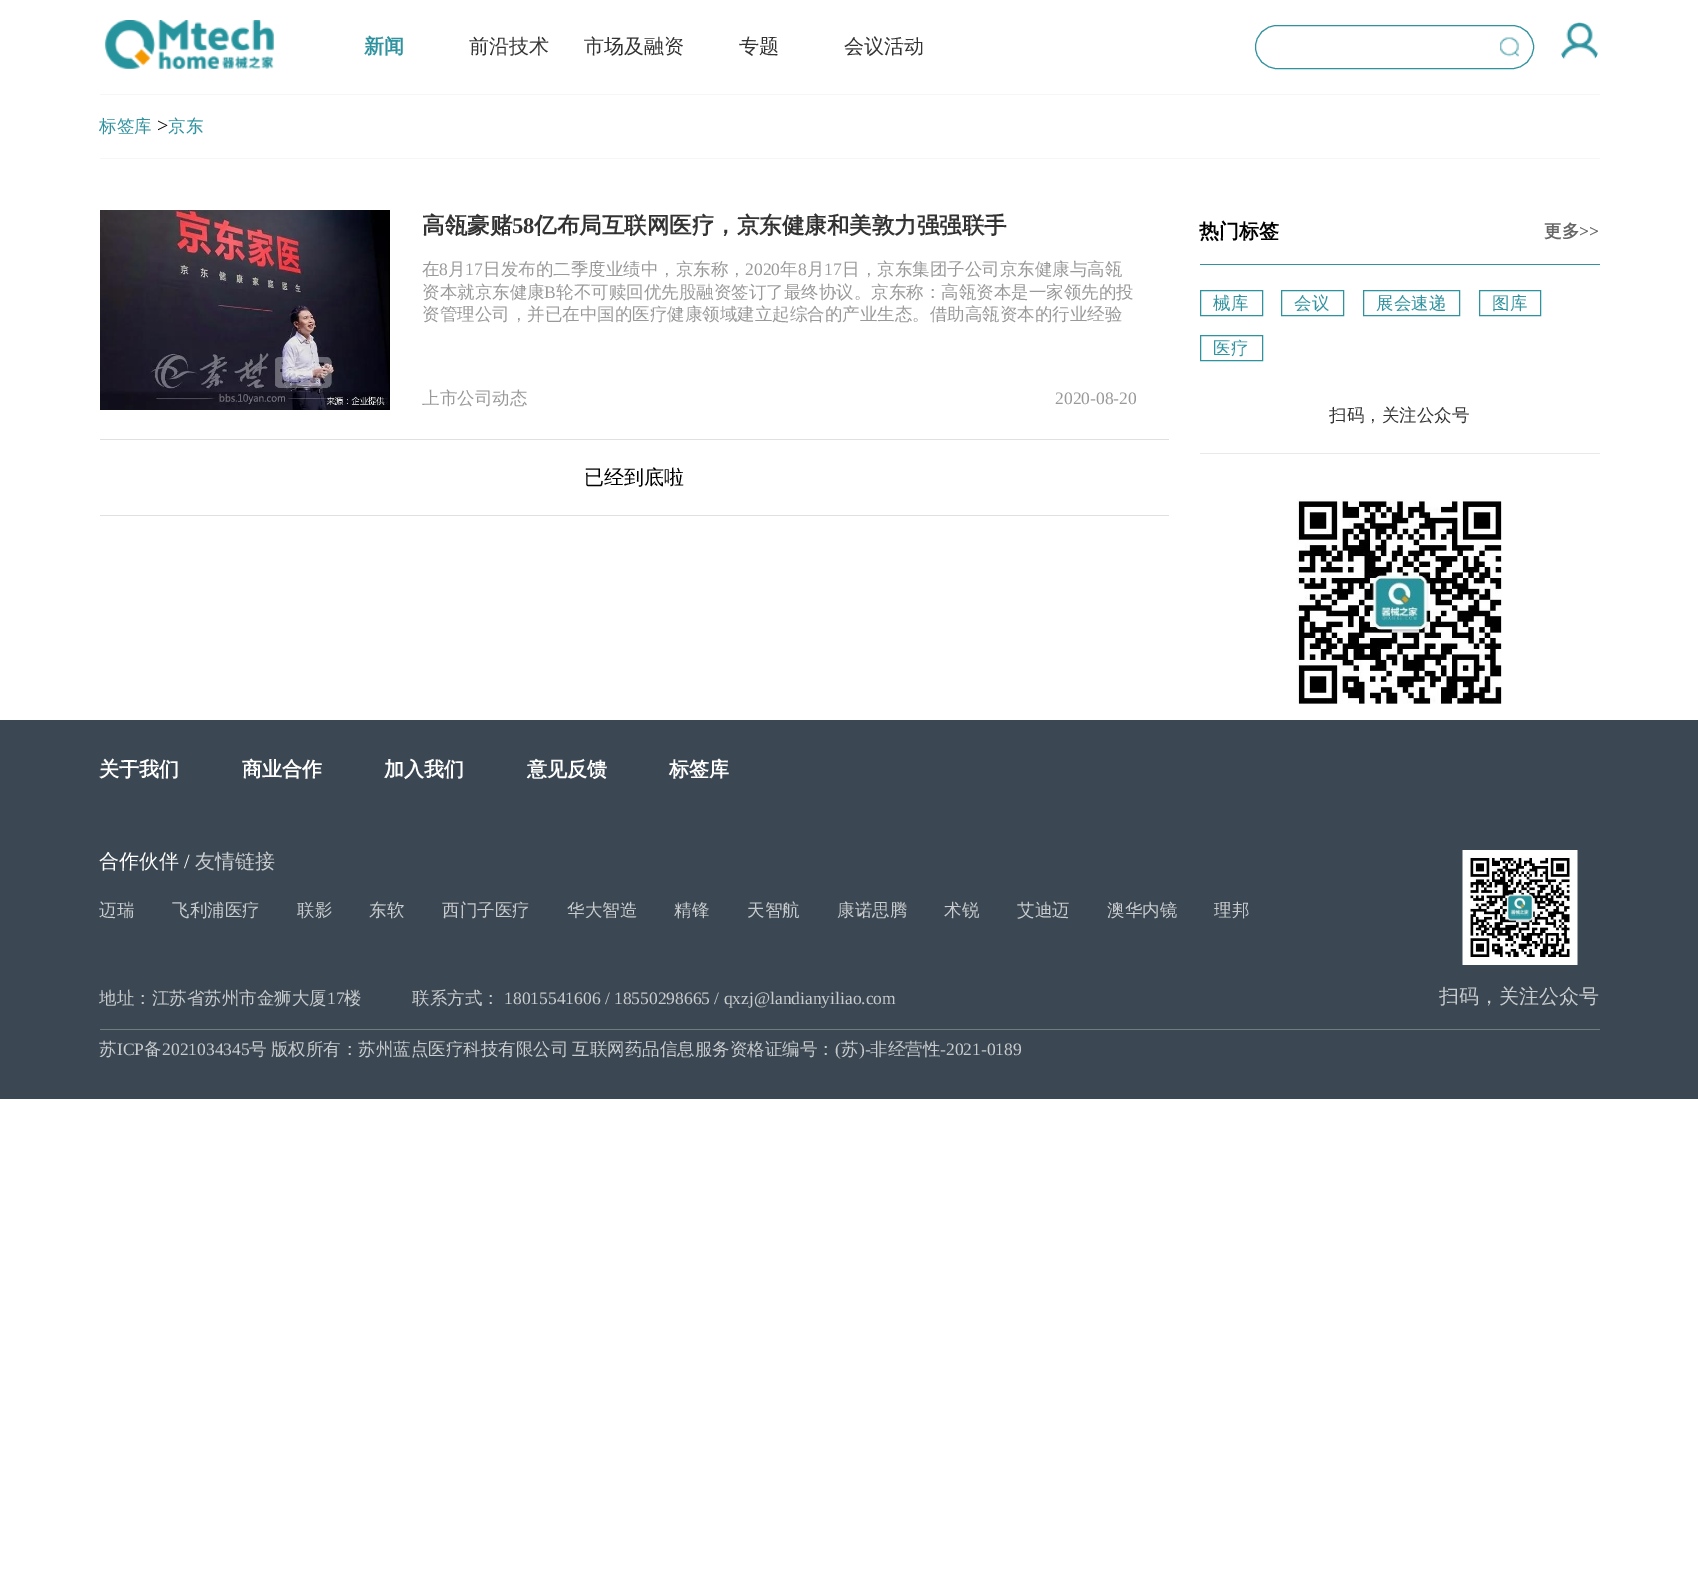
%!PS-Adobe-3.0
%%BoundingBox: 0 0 1698 1596
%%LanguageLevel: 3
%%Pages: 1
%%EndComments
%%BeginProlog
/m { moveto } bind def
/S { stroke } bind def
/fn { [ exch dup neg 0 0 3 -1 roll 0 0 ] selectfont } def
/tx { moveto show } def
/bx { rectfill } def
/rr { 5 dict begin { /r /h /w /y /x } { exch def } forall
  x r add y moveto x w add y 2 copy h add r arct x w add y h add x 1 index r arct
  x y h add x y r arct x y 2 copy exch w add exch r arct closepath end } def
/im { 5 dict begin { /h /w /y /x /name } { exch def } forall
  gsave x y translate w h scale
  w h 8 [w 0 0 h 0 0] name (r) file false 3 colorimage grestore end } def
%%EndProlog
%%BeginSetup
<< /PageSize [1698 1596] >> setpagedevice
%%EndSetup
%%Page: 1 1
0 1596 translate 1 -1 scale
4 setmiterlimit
1 setgray
0 0 1698 1596 bx
(image0.raw) 104 20 170 49 im
/WenQuanYiZenHei-Bold 20 fn
0.184 0.573 0.624 setrgbcolor
(新闻) 364 53 tx
/WenQuanYiZenHei-Medium 20 fn
0.2 setgray
(前沿技术) 469 53 tx
(市场及融资) 584 53 tx
(专题) 739 53 tx
(会议活动) 844 53 tx
(image1.raw) 1500 37 19 20 im
0.184 0.573 0.624 setrgbcolor
1255.5 25.5 278 43 21.5 rr S
(image2.raw) 1561 22 37 37 im
0.965 setgray
100 94 1500 1 bx
100 158 1500 1 bx
/WenQuanYiZenHei-Medium 17.5 fn
0.184 0.573 0.624 setrgbcolor
(标签库) 99 132 tx
/LiberationSerif-Regular 20 fn
0 setgray
(>) 157 132 tx
/WenQuanYiZenHei-Medium 17.5 fn
0.184 0.573 0.624 setrgbcolor
(京东) 168 132 tx
0.878 setgray
100 439 1069 1 bx
(image3.raw) 100 210 290 200 im
/WenQuanYiZenHei-Bold 22.5 fn
0.2 setgray
(高瓴豪赌) 422 233 tx
/LiberationSerif-Bold 22.5 fn
(58) 512 233 tx
/WenQuanYiZenHei-Bold 22.5 fn
(亿布局互联网医疗，京东健康和美敦力强强联手) 534 233 tx
/WenQuanYiZenHei-Medium 17.5 fn
0.6 setgray
(在) 422 275 tx
/LiberationSerif-Regular 17.5 fn
(8) 439 275 tx
/WenQuanYiZenHei-Medium 17.5 fn
(月) 448 275 tx
/LiberationSerif-Regular 17.5 fn
(17) 465 275 tx
/WenQuanYiZenHei-Medium 17.5 fn
(日发布的二季度业绩中，京东称，) 483 275 tx
/LiberationSerif-Regular 17.5 fn
(2020) 745 275 tx
/WenQuanYiZenHei-Medium 17.5 fn
(年) 780 275 tx
/LiberationSerif-Regular 17.5 fn
(8) 798 275 tx
/WenQuanYiZenHei-Medium 17.5 fn
(月) 807 275 tx
/LiberationSerif-Regular 17.5 fn
(17) 824 275 tx
/WenQuanYiZenHei-Medium 17.5 fn
(日，京东集团子公司京东健康与高瓴) 842 275 tx
(资本就京东健康) 422 298 tx
/LiberationSerif-Regular 17.5 fn
(B) 544 298 tx
/WenQuanYiZenHei-Medium 17.5 fn
(轮不可赎回优先股融资签订了最终协议。京东称：高瓴资本是一家领先的投) 556 298 tx
(资管理公司，并已在中国的医疗健康领域建立起综合的产业生态。借助高瓴资本的行业经验) 422 320 tx
(上市公司动态) 422 404 tx
/LiberationSerif-Regular 17.5 fn
(2020-08-20) 1055 404 tx
0.878 setgray
100 515 1069 1 bx
/WenQuanYiZenHei-Medium 20 fn
0 setgray
(已经到底啦) 584 484 tx
0.184 0.573 0.624 setrgbcolor
1200 264 400 1 bx
/WenQuanYiZenHei-Bold 20 fn
0 setgray
(热门标签) 1199 238 tx
/WenQuanYiZenHei-Bold 17.5 fn
0.4 setgray
(更多) 1544 237 tx
/LiberationSerif-Bold 17.5 fn
(>>) 1579 237 tx
0.184 0.573 0.624 setrgbcolor
1200.5 290.5 62 25 rectstroke
/WenQuanYiZenHei-Medium 17.5 fn
(械库) 1213 309 tx
1281.5 290.5 62 25 rectstroke
(会议) 1294 309 tx
1363.5 290.5 96 25 rectstroke
(展会速递) 1376 309 tx
1479.5 290.5 61 25 rectstroke
(图库) 1492 309 tx
1200.5 335.5 62 25 rectstroke
(医疗) 1213 354 tx
0.918 0.914 0.914 setrgbcolor
1200 453 400 1 bx
0.2 setgray
(扫码，关注公众号) 1329 421 tx
(image4.raw) 1296 499 206 205 im
0.231 0.282 0.325 setrgbcolor
0 720 1698 379 bx
/WenQuanYiZenHei-Bold 20 fn
1 setgray
(关于我们) 99 776 tx
(商业合作) 242 776 tx
(加入我们) 384 776 tx
(意见反馈) 527 776 tx
(标签库) 669 776 tx
0.443 0.486 0.506 setrgbcolor
100 1029 1500 1 bx
/WenQuanYiZenHei-Medium 20 fn
1 setgray
(合作伙伴) 99 868 tx
/LiberationSerif-Regular 20 fn
(/) 184 868 tx
/WenQuanYiZenHei-Medium 20 fn
0.788 0.8 0.808 setrgbcolor
(友情链接) 195 868 tx
/WenQuanYiZenHei-Medium 17.5 fn
(迈瑞) 99 916 tx
(飞利浦医疗) 172 916 tx
(联影) 297 916 tx
(东软) 369 916 tx
(西门子医疗) 442 916 tx
(华大智造) 567 916 tx
(精锋) 674 916 tx
(天智航) 747 916 tx
(康诺思腾) 837 916 tx
(术锐) 944 916 tx
(艾迪迈) 1017 916 tx
(澳华内镜) 1107 916 tx
(理邦) 1214 916 tx
(地址：江苏省苏州市金狮大厦) 99 1004 tx
/LiberationSerif-Regular 17.5 fn
(17) 327 1004 tx
/WenQuanYiZenHei-Medium 17.5 fn
(楼) 344 1004 tx
(联系方式：) 412 1004 tx
/LiberationSerif-Regular 17.5 fn
(18015541606 / 18550298665 / qxzj@landianyiliao.com) 504 1004 tx
(image5.raw) 1462 850 116 115 im
/WenQuanYiZenHei-Medium 20 fn
(扫码，关注公众号) 1439 1003 tx
/WenQuanYiZenHei-Medium 17.5 fn
(苏) 99 1055 tx
/LiberationSerif-Regular 17.5 fn
(ICP) 117 1055 tx
/WenQuanYiZenHei-Medium 17.5 fn
(备) 144 1055 tx
/LiberationSerif-Regular 17.5 fn
(2021034345) 162 1055 tx
/WenQuanYiZenHei-Medium 17.5 fn
249 1055 m -1 0 32 (号 版权所有：苏州蓝点医疗科技有限公司 互联网药品信息服务资格证编号：) widthshow
/LiberationSerif-Regular 17.5 fn
(\() 835 1055 tx
/WenQuanYiZenHei-Medium 17.5 fn
(苏) 841 1055 tx
/LiberationSerif-Regular 17.5 fn
(\)-) 859 1055 tx
/WenQuanYiZenHei-Medium 17.5 fn
(非经营性) 870 1055 tx
/LiberationSerif-Regular 17.5 fn
(-2021-0189) 940 1055 tx
showpage
%%EOF
